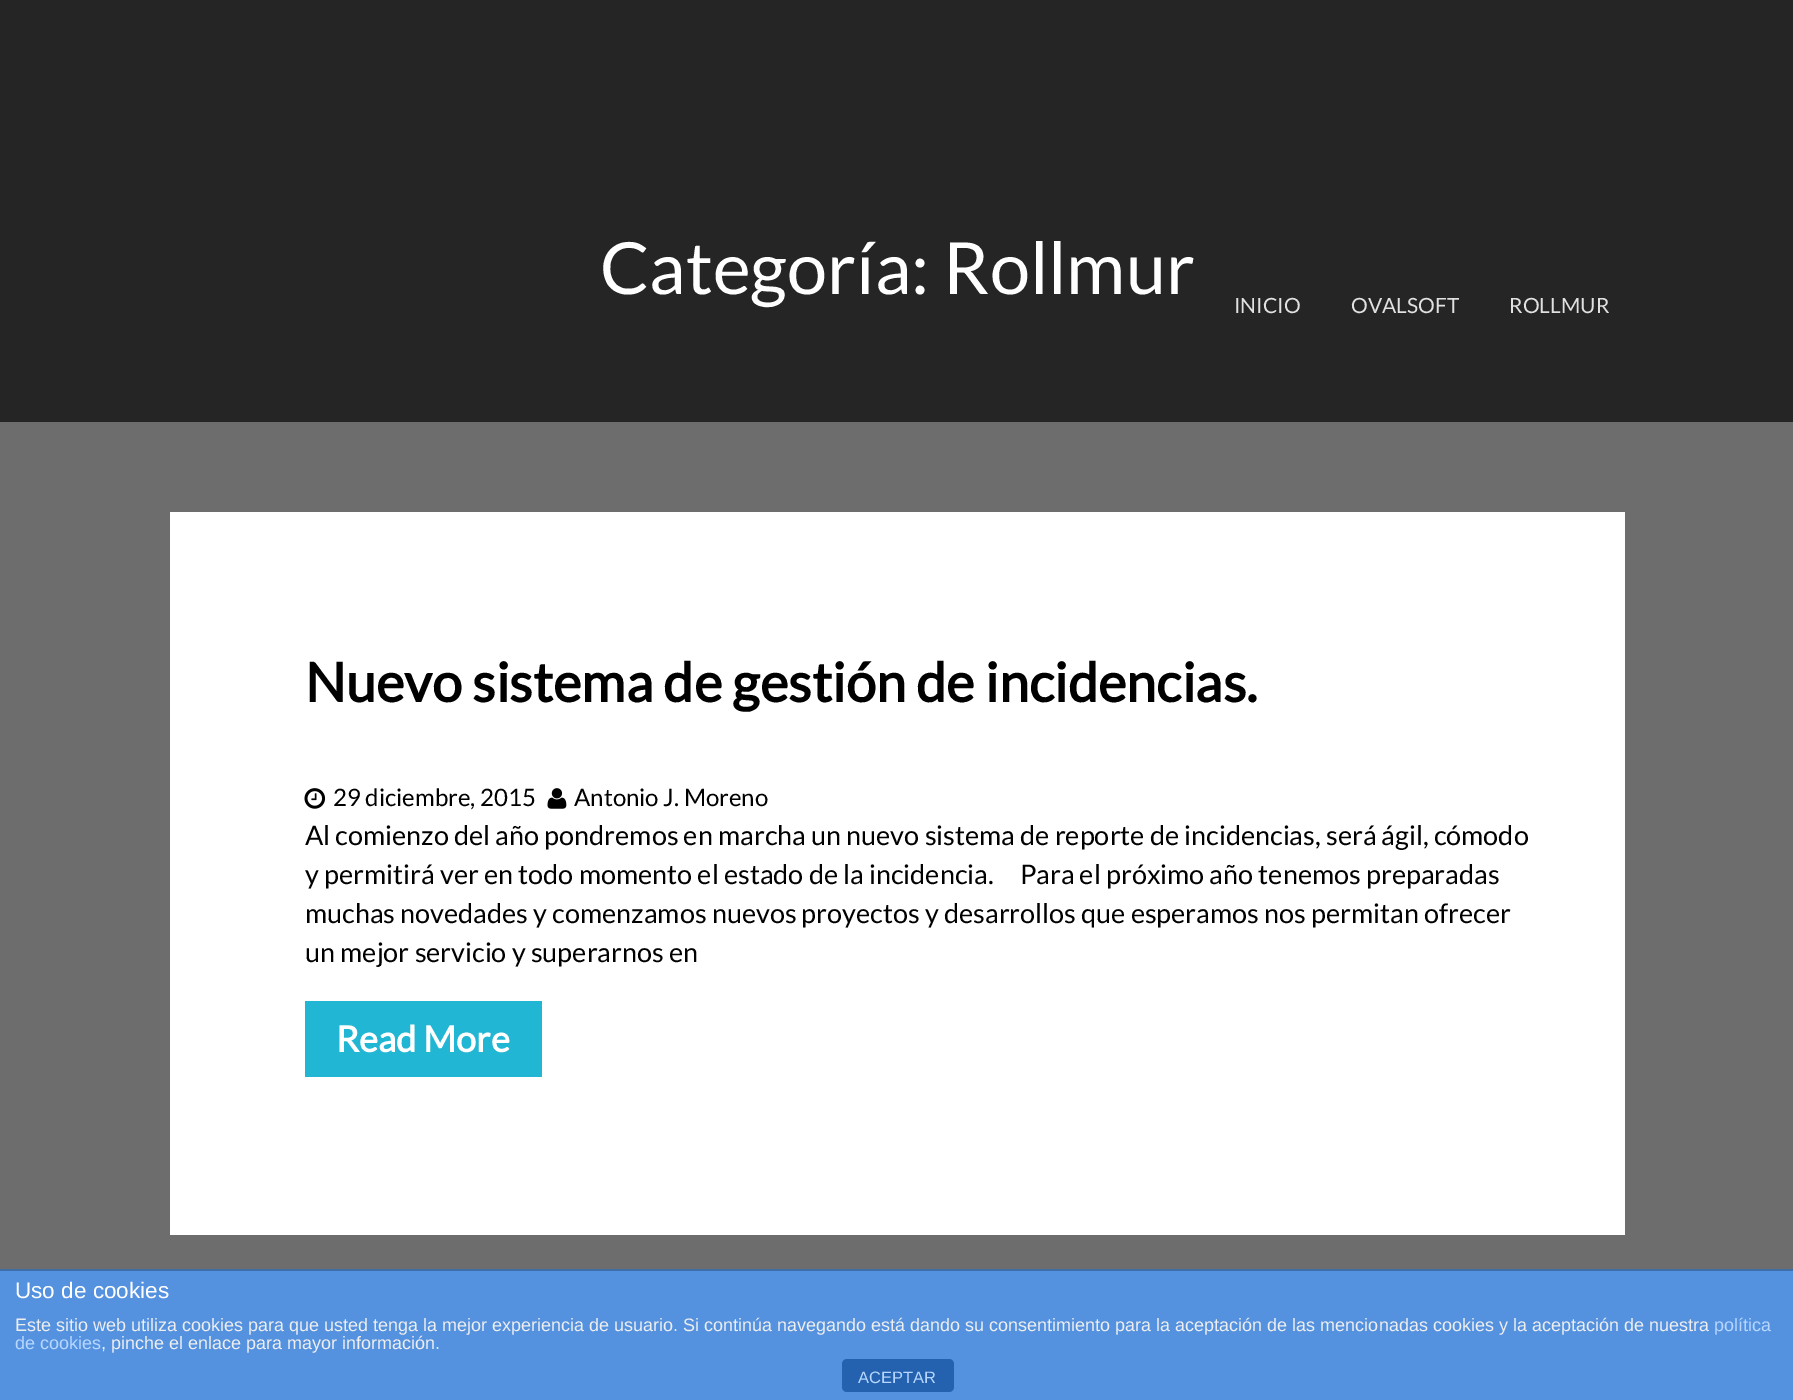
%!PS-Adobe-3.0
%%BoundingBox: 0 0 1793 1400
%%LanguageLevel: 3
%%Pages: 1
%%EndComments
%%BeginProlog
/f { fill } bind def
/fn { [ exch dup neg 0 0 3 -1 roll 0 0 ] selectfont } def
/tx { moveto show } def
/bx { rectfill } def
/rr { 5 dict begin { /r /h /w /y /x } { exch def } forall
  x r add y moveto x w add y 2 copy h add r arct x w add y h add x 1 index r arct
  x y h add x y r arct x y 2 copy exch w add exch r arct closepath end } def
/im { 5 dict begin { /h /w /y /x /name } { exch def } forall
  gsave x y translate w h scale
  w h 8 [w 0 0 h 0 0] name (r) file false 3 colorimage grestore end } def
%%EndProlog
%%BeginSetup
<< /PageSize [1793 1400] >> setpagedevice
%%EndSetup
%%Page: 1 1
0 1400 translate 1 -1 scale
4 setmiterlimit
0.427 setgray
0 0 1793 1400 bx
0.145 setgray
0 0 1793 422 bx
/Lato-Regular 72 fn
1 setgray
(Categoría: Rollmur) 600 294 tx
170 512 1455 723 bx
/Lato-Bold 54 fn
0 setgray
(Nuevo sistema de gestión de incidencias.) 305 702 tx
(image0.raw) 304 788 22 21 im
/Lato-Regular 24 fn
(29 diciembre, 2015) 333 806 tx
(image1.raw) 547 788 20 21 im
(Antonio J. Moreno) 574 806 tx
/Lato-Regular 27 fn
(Al comienzo del año pondremos en marcha un nuevo sistema de reporte de incidencias, será ágil, cómodo) 305 845 tx
(y permitirá ver en todo momento el estado de la incidencia.     Para el próximo año tenemos preparadas) 305 884 tx
(muchas novedades y comenzamos nuevos proyectos y desarrollos que esperamos nos permitan ofrecer) 305 923 tx
(un mejor servicio y superarnos en) 305 962 tx
0.129 0.714 0.827 setrgbcolor
305 1001 237 76 bx
/Lato-Bold 36 fn
1 setgray
(Read More) 336 1052 tx
/Lato-Regular 21 fn
0.882 setgray
(INICIO) 1234 313 tx
(OVALSOFT) 1351 313 tx
(ROLLMUR) 1509 313 tx
0.329 0.573 0.878 setrgbcolor
0 1271 1793 129 bx
0.247 0.427 0.655 setrgbcolor
0 1269 1793 2 bx
/LiberationSans-Regular 22.5 fn
1 setgray
(Uso de cookies) 15 1298 tx
/LiberationSans-Regular 18 fn
0.933 setgray
(Este sitio web utiliza cookies para que usted tenga la mejor experiencia de usuario. Si continúa navegando está dando su consentimiento para la aceptación de las mencionadas cookies y la aceptación de nuestra) 15 1331 tx
0.718 0.843 1 setrgbcolor
(política) 1714 1331 tx
(de cookies) 15 1349 tx
0.933 setgray
(, pinche el enlace para mayor información.) 101 1349 tx
0.141 0.384 0.69 setrgbcolor
842 1359 112 33 5 rr f
/LiberationSans-Regular 16.5 fn
0.718 0.843 1 setrgbcolor
(ACEPTAR) 858 1383 tx
showpage
%%EOF
